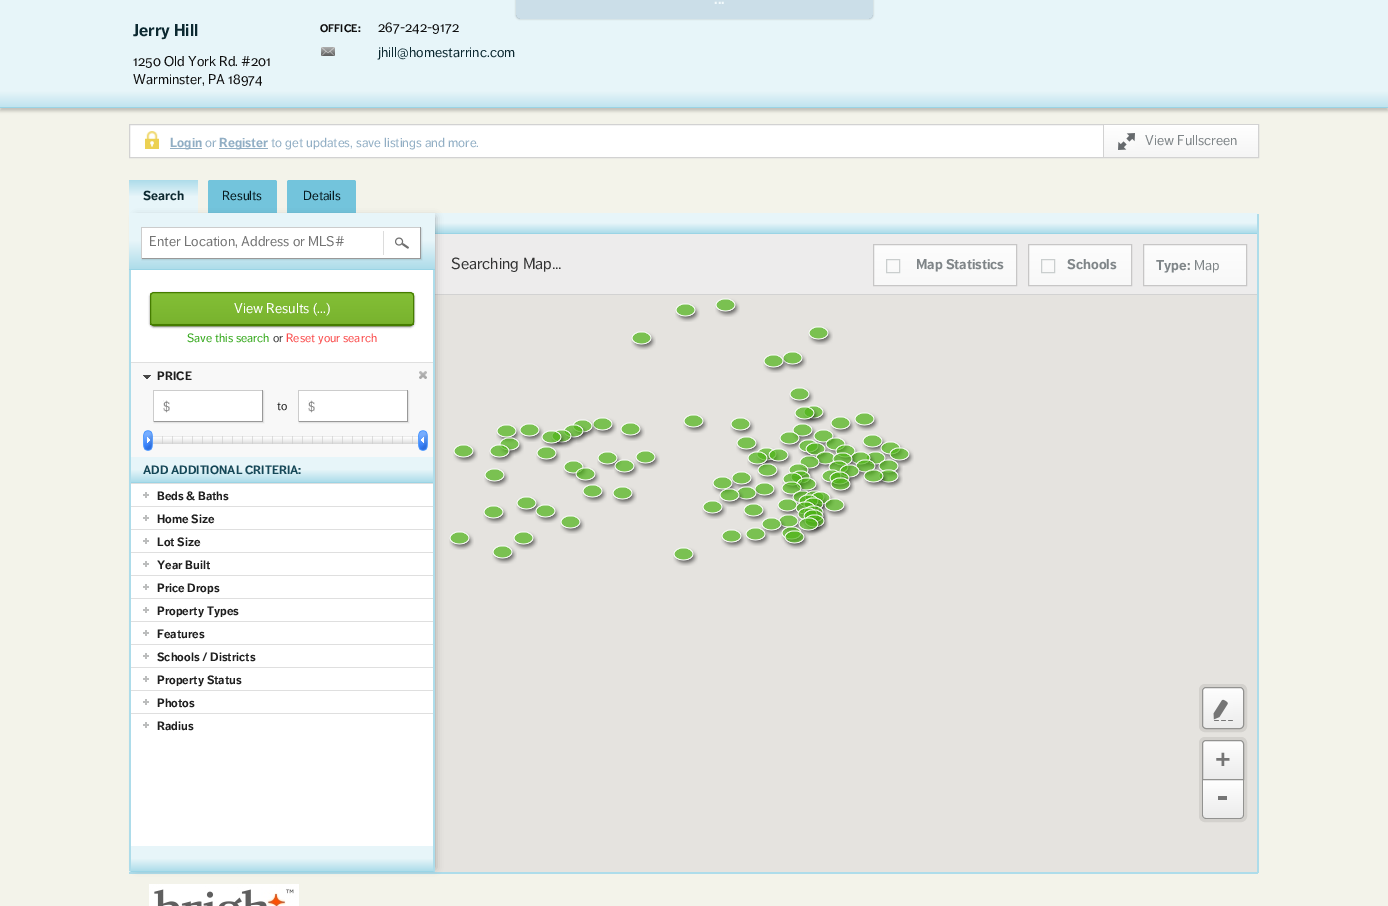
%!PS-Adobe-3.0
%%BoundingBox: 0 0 1388 906
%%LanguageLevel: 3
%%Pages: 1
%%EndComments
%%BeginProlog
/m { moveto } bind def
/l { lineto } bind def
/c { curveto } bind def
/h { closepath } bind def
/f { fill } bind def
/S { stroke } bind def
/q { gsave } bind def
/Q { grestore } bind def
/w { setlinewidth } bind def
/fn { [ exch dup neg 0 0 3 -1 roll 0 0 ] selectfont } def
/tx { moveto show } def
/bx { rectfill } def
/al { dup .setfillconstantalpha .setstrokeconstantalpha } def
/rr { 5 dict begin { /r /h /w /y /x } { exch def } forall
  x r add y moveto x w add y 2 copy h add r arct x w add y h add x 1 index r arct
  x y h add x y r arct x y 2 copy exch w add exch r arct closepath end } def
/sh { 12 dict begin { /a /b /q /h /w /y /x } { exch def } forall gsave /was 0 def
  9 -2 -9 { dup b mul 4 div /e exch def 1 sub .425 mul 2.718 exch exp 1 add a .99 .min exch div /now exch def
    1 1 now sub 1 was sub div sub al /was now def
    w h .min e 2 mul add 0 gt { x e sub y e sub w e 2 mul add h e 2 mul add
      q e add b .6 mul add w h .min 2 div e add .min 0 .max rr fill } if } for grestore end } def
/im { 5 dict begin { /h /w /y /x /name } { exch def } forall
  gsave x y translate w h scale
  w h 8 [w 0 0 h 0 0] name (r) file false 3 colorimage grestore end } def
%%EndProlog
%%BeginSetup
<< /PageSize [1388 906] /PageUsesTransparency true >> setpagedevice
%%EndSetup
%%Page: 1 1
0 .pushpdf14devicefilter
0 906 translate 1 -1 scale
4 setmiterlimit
0.953 0.953 0.918 setrgbcolor
0 0 1388 906 bx
0 setgray
0 3 1388 108 0 1.5 0.2 sh
q 0 0 m 1388 0 l 1388 107 l 0 107 l h clip newpath
<< /ShadingType 2 /ColorSpace /DeviceRGB /Coords [0 107 0 0] /Extend [true true] /Function << /FunctionType 3 /Domain [0 1] /Functions [<< /FunctionType 2 /Domain [0 1] /C0 [0.753 0.894 0.937] /C1 [0.906 0.961 0.976] /N 1 >> << /FunctionType 2 /Domain [0 1] /C0 [0.906 0.961 0.976] /C1 [0.906 0.961 0.976] /N 1 >>] /Bounds [0.15] /Encode [0 1 0 1] >> >> shfill Q
q
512 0 m 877 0 l 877 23 l 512 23 l h 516 -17 m 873 -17 l 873 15 l 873 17 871 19 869 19 c 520 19 l 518 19 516 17 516 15 c h eoclip newpath
0.714 0.741 0.749 setrgbcolor
516 -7 357 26 4 1 1 sh
Q
0.63 al
0.733 0.82 0.871 setrgbcolor
516 -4 m 873 -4 l 873 15 l 873 17 871 19 869 19 c 520 19 l 518 19 516 17 516 15 c h f
/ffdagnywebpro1-Bold 14 fn
1 al
0.953 0.98 0.988 setrgbcolor
(...) 714 4 tx
q 131 180 m 196 180 l 197 180 198 181 198 182 c 198 213 l 129 213 l 129 182 l 129 181 130 180 131 180 c h clip newpath
<< /ShadingType 2 /ColorSpace /DeviceRGB /Coords [129 180 129 213] /Extend [true true] /Function << /FunctionType 3 /Domain [0 1] /Functions [<< /FunctionType 2 /Domain [0 1] /C0 [0.678 0.863 0.918] /C1 [0.906 0.961 0.976] /N 1 >> << /FunctionType 2 /Domain [0 1] /C0 [0.906 0.961 0.976] /C1 [0.906 0.961 0.976] /N 1 >>] /Bounds [0.5] /Encode [0 1 0 1] >> >> shfill Q
/ffdagnywebpro1-Bold 13 fn
0.047 0.161 0.192 setrgbcolor
(Search) 143 200 tx
0.451 0.769 0.863 setrgbcolor
210 180 m 275 180 l 276 180 277 181 277 182 c 277 213 l 208 213 l 208 182 l 208 181 209 180 210 180 c h f
/ffdagnywebpro1-Regular 13 fn
0.027 0.102 0.122 setrgbcolor
(Results) 222 200 tx
0.451 0.769 0.863 setrgbcolor
289 180 m 354 180 l 355 180 356 181 356 182 c 356 213 l 287 213 l 287 182 l 287 181 288 180 289 180 c h f
0.027 0.102 0.122 setrgbcolor
(Details) 303 200 tx
0.678 0.863 0.918 setrgbcolor
1257 214 2 659 bx
129 872 1129 2 bx
q 435 213 m 1257 213 l 1257 233 l 435 233 l h clip newpath
<< /ShadingType 2 /ColorSpace /DeviceRGB /Coords [435 233 435 213] /Extend [true true] /Function << /FunctionType 3 /Domain [0 1] /Functions [<< /FunctionType 2 /Domain [0 1] /C0 [0.678 0.863 0.918] /C1 [0.906 0.961 0.976] /N 1 >> << /FunctionType 2 /Domain [0 1] /C0 [0.906 0.961 0.976] /C1 [0.906 0.961 0.976] /N 1 >>] /Bounds [0.5] /Encode [0 1 0 1] >> >> shfill Q
0.604 0.831 0.898 setrgbcolor
435 233 822 1 bx
0.929 0.925 0.925 setrgbcolor
435 234 822 60 bx
0.824 setgray
435 294 822 1 bx
0.898 0.89 0.875 setrgbcolor
435 295 822 577 bx
0 setgray
137 217 298 651 0 4 0.3 sh
1 setgray
131 270 302 576 bx
q 129 213 m 435 213 l 435 269 l 129 269 l h clip newpath
<< /ShadingType 2 /ColorSpace /DeviceRGB /Coords [129 269 129 213] /Extend [true true] /Function << /FunctionType 3 /Domain [0 1] /Functions [<< /FunctionType 2 /Domain [0 1] /C0 [0.678 0.863 0.918] /C1 [0.906 0.961 0.976] /N 1 >> << /FunctionType 2 /Domain [0 1] /C0 [0.906 0.961 0.976] /C1 [0.906 0.961 0.976] /N 1 >>] /Bounds [0.5] /Encode [0 1 0 1] >> >> shfill Q
0.604 0.831 0.898 setrgbcolor
129 269 306 1 bx
0 setgray
142 228 280 32 0 0.5 0.1 sh
1 setgray
142 228 278 30 bx
0.8 setgray
141 227 280 1 bx
0.6 setgray
420 227 1 32 bx
141 258 280 1 bx
0.8 setgray
141 227 1 32 bx
/ffdagnywebpro1-Regular 14 fn
0.455 setgray
(Enter Location, Address or MLS#) 149 246 tx
0.863 setgray
383 231 1 24 bx
(image0.raw) 395 237 14 12 im
0.678 0.863 0.918 setrgbcolor
433 270 2 576 bx
129 270 2 576 bx
0 setgray
150 293 264 34 4 1 0.5 sh
q
150 292 264 34 4 rr clip newpath
q 150 293 m 414 293 l 414 325 l 150 325 l h clip newpath
<< /ShadingType 2 /ColorSpace /DeviceRGB /Coords [282 293 282 325] /Extend [true true] /Function << /FunctionType 3 /Domain [0 1] /Functions [<< /FunctionType 2 /Domain [0 1] /C0 [0.514 0.749 0.212] /C1 [0.475 0.702 0.18] /N 1 >> << /FunctionType 2 /Domain [0 1] /C0 [0.475 0.702 0.18] /C1 [0.271 0.486 0] /N 1 >>] /Bounds [0.95] /Encode [0 1 0 1] >> >> shfill Q
Q
0.271 0.486 0 setrgbcolor
150.5 292.5 263 33 3.5 rr S
1 setgray
(View Results \(...\)) 234 313 tx
/ffdagnywebpro1-Regular 12 fn
0.188 0.651 0.09 setrgbcolor
(Save this search) 187 342 tx
0.231 setgray
(or) 273 342 tx
0.98 0.29 0.29 setrgbcolor
(Reset your search) 286 342 tx
0.973 setgray
131 363 302 94 bx
0.875 setgray
131 362 302 1 bx
(image1.raw) 143 375 8 4 im
/ffdagnywebpro1-Bold 12 fn
0.122 setgray
(PRICE) 157 380 tx
(image2.raw) 419 371 8 8 im
0 setgray
154 391 110 32 0 0.5 0.1 sh
1 setgray
154 391 108 30 bx
(image3.raw) 163 400 7 13 im
0.8 setgray
153 390 110 1 bx
0.6 setgray
262 390 1 32 bx
153 421 110 1 bx
0.8 setgray
153 390 1 32 bx
/ffdagnywebpro1-Regular 12 fn
0.122 setgray
(to) 277 410 tx
0 setgray
299 391 110 32 0 0.5 0.1 sh
1 setgray
299 391 108 30 bx
(image3.raw) 308 400 7 13 im
0.8 setgray
298 390 110 1 bx
0.6 setgray
407 390 1 32 bx
298 421 110 1 bx
0.8 setgray
298 390 1 32 bx
(image4.raw) 143 436 285 8 im
(image5.raw) 143 430 10 21 im
(image6.raw) 418 430 10 21 im
q 131 457 m 433 457 l 433 482 l 131 482 l h clip newpath
<< /ShadingType 2 /ColorSpace /DeviceRGB /Coords [131 482 131 457] /Extend [true true] /Function << /FunctionType 3 /Domain [0 1] /Functions [<< /FunctionType 2 /Domain [0 1] /C0 [0.678 0.863 0.918] /C1 [0.906 0.961 0.976] /N 1 >> << /FunctionType 2 /Domain [0 1] /C0 [0.906 0.961 0.976] /C1 [0.906 0.961 0.976] /N 1 >>] /Bounds [0.5] /Encode [0 1 0 1] >> >> shfill Q
0.604 0.831 0.898 setrgbcolor
131 482 302 1 bx
/ffdagnywebpro1-Bold 12 fn
0.086 0.282 0.345 setrgbcolor
(ADD ADDITIONAL CRITERIA:) 143 474 tx
0.875 setgray
131 483 302 1 bx
(image7.raw) 143 492 6 6 im
0.122 setgray
(Beds & Baths) 157 500 tx
0.875 setgray
131 506 302 1 bx
(image7.raw) 143 515 6 6 im
0.122 setgray
(Home Size) 157 523 tx
0.875 setgray
131 529 302 1 bx
(image7.raw) 143 538 6 6 im
0.122 setgray
(Lot Size) 157 546 tx
0.875 setgray
131 552 302 1 bx
(image7.raw) 143 561 6 6 im
0.122 setgray
(Year Built) 157 569 tx
0.875 setgray
131 575 302 1 bx
(image7.raw) 143 584 6 6 im
0.122 setgray
(Price Drops) 157 592 tx
0.875 setgray
131 598 302 1 bx
(image7.raw) 143 607 6 6 im
0.122 setgray
(Property Types) 157 615 tx
0.875 setgray
131 621 302 1 bx
(image7.raw) 143 630 6 6 im
0.122 setgray
(Features) 157 638 tx
0.875 setgray
131 644 302 1 bx
(image7.raw) 143 653 6 6 im
0.122 setgray
(Schools / Districts) 157 661 tx
0.875 setgray
131 667 302 1 bx
(image7.raw) 143 676 6 6 im
0.122 setgray
(Property Status) 157 684 tx
0.875 setgray
131 690 302 1 bx
(image7.raw) 143 699 6 6 im
0.122 setgray
(Photos) 157 707 tx
0.875 setgray
131 713 302 1 bx
(image7.raw) 143 722 6 6 im
0.122 setgray
(Radius) 157 730 tx
q 129 846 m 433 846 l 433 871 l 129 871 l h clip newpath
<< /ShadingType 2 /ColorSpace /DeviceRGB /Coords [131 871 131 846] /Extend [true true] /Function << /FunctionType 3 /Domain [0 1] /Functions [<< /FunctionType 2 /Domain [0 1] /C0 [0.678 0.863 0.918] /C1 [0.906 0.961 0.976] /N 1 >> << /FunctionType 2 /Domain [0 1] /C0 [0.906 0.961 0.976] /C1 [0.906 0.961 0.976] /N 1 >>] /Bounds [0.5] /Encode [0 1 0 1] >> >> shfill Q
q 129 871 m 435 871 l 435 872 l 129 872 l h clip newpath
<< /ShadingType 2 /ColorSpace /DeviceRGB /Coords [131 896 131 871] /Extend [true true] /Function << /FunctionType 3 /Domain [0 1] /Functions [<< /FunctionType 2 /Domain [0 1] /C0 [0.678 0.863 0.918] /C1 [0.906 0.961 0.976] /N 1 >> << /FunctionType 2 /Domain [0 1] /C0 [0.906 0.961 0.976] /C1 [0.906 0.961 0.976] /N 1 >>] /Bounds [0.5] /Encode [0 1 0 1] >> >> shfill Q
0.678 0.863 0.918 setrgbcolor
435 846 m 433 846 l 433 871 l 435 872 l h f
0.604 0.831 0.898 setrgbcolor
435 872 m 433 871 l 131 871 l 130 872 l 131 872 l h f
0.678 0.863 0.918 setrgbcolor
129 846 m 131 846 l 131 871 l 130 871.5 l 129.5 871 129 870.5 129 870 c h f
/ffdagnywebpro1-Regular 16 fn
0.2 setgray
(Searching Map...) 451 269 tx
q 874 245 m 1016 245 l 1016 285 l 874 285 l h clip newpath
<< /ShadingType 2 /ColorSpace /DeviceRGB /Coords [945 245 945 285] /Extend [true true] /Function << /FunctionType 2 /Domain [0 1] /C0 [0.992 0.992 0.992] /C1 [0.973 0.973 0.973] /N 1 >> >> shfill Q
0.78 0.776 0.776 setrgbcolor
873.5 244.5 143 41 rectstroke
0.792 0.808 0.808 setrgbcolor
886.5 259.5 13 13 rectstroke
/ffdagnywebpro1-Bold 14 fn
0.498 0.522 0.533 setrgbcolor
(Map Statistics) 916 269 tx
q 1029 245 m 1131 245 l 1131 285 l 1029 285 l h clip newpath
<< /ShadingType 2 /ColorSpace /DeviceRGB /Coords [1080 245 1080 285] /Extend [true true] /Function << /FunctionType 2 /Domain [0 1] /C0 [0.992 0.992 0.992] /C1 [0.973 0.973 0.973] /N 1 >> >> shfill Q
0.78 0.776 0.776 setrgbcolor
1028.5 244.5 103 41 rectstroke
0.792 0.808 0.808 setrgbcolor
1041.5 259.5 13 13 rectstroke
0.498 0.522 0.533 setrgbcolor
(Schools) 1067 269 tx
q 1144 245 m 1246 245 l 1246 285 l 1144 285 l h clip newpath
<< /ShadingType 2 /ColorSpace /DeviceRGB /Coords [1195 245 1195 285] /Extend [true true] /Function << /FunctionType 2 /Domain [0 1] /C0 [0.992 0.992 0.992] /C1 [0.973 0.973 0.973] /N 1 >> >> shfill Q
0.78 0.776 0.776 setrgbcolor
1143.5 244.5 103 41 rectstroke
0.498 0.522 0.533 setrgbcolor
(Type:) 1156 270 tx
/ffdagnywebpro1-Regular 14 fn
(Map) 1194 270 tx
(image8.raw) 675 303 25 19 im
(image8.raw) 715 298 25 19 im
(image8.raw) 631 331 25 19 im
(image8.raw) 808 326 25 19 im
(image8.raw) 782 351 25 19 im
(image9.raw) 763 354 25 19 im
(image8.raw) 789 387 25 19 im
(image10.raw) 803 405 25 19 im
(image8.raw) 519 423 25 19 im
(image8.raw) 592 417 25 19 im
(image11.raw) 572 419 25 19 im
(image8.raw) 620 422 25 19 im
(image8.raw) 683 414 25 19 im
(image8.raw) 730 417 25 19 im
(image12.raw) 794 406 25 19 im
(image8.raw) 854 412 25 19 im
(image13.raw) 830 416 25 19 im
(image14.raw) 496 424 25 19 im
(image15.raw) 563 424 25 19 im
(image16.raw) 792 423 25 19 im
(image17.raw) 551 429 25 19 im
(image18.raw) 813 429 25 19 im
(image19.raw) 499 437 25 19 im
(image20.raw) 541 430 25 19 im
(image21.raw) 736 436 25 19 im
(image22.raw) 779 431 25 19 im
(image23.raw) 798 439 25 19 im
(image24.raw) 825 437 25 19 im
(image8.raw) 862 434 25 19 im
(image25.raw) 880 441 25 19 im
(image8.raw) 453 444 25 19 im
(image26.raw) 489 444 25 19 im
(image27.raw) 536 446 25 19 im
(image28.raw) 756 447 25 19 im
(image29.raw) 805 442 25 19 im
(image30.raw) 835 444 25 19 im
(image31.raw) 889 447 25 19 im
(image8.raw) 597 451 25 19 im
(image8.raw) 635 450 25 19 im
(image32.raw) 614 459 25 19 im
(image34.raw) 768 448 25 19 im
(image33.raw) 747 451 25 19 im
(image36.raw) 815 451 25 19 im
(image35.raw) 799 455 25 19 im
(image39.raw) 865 451 25 19 im
(image38.raw) 850 451 25 19 im
(image37.raw) 832 452 25 19 im
(image8.raw) 563 460 25 19 im
(image40.raw) 757 463 25 19 im
(image41.raw) 788 463 25 19 im
(image42.raw) 828 460 25 19 im
(image44.raw) 878 459 25 19 im
(image43.raw) 855 459 25 19 im
(image8.raw) 484 468 25 19 im
(image45.raw) 575 467 25 19 im
(image8.raw) 731 471 25 19 im
(image46.raw) 790 470 25 19 im
(image48.raw) 839 464 25 19 im
(image47.raw) 821 469 25 19 im
(image50.raw) 878 469 25 19 im
(image49.raw) 863 469 25 19 im
(image51.raw) 712 476 25 19 im
(image52.raw) 782 472 25 19 im
(image53.raw) 796 477 25 19 im
(image54.raw) 829 471 25 19 im
(image55.raw) 582 484 25 19 im
(image8.raw) 612 486 25 19 im
(image58.raw) 754 482 25 19 im
(image57.raw) 736 486 25 19 im
(image56.raw) 719 488 25 19 im
(image59.raw) 781 481 25 19 im
(image60.raw) 830 477 25 19 im
(image61.raw) 792 490 25 19 im
(image62.raw) 804 490 25 19 im
(image63.raw) 810 491 25 19 im
(image8.raw) 516 496 25 19 im
(image64.raw) 798 494 25 19 im
(image65.raw) 702 500 25 19 im
(image66.raw) 777 498 25 19 im
(image67.raw) 803 497 25 19 im
(image68.raw) 824 498 25 19 im
(image8.raw) 483 505 25 19 im
(image69.raw) 535 504 25 19 im
(image70.raw) 743 503 25 19 im
(image71.raw) 795 501 25 19 im
(image72.raw) 803 505 25 19 im
(image73.raw) 797 507 25 19 im
(image74.raw) 778 514 25 19 im
(image75.raw) 803 509 25 19 im
(image8.raw) 560 515 25 19 im
(image76.raw) 761 517 25 19 im
(image77.raw) 804 514 25 19 im
(image79.raw) 745 527 25 19 im
(image78.raw) 721 529 25 19 im
(image81.raw) 798 517 25 19 im
(image80.raw) 781 526 25 19 im
(image8.raw) 449 531 25 19 im
(image8.raw) 513 531 25 19 im
(image82.raw) 784 530 25 19 im
(image83.raw) 492 545 25 19 im
(image8.raw) 673 547 25 19 im
q 1202 687 42 42 3 rr clip newpath
<< /ShadingType 2 /ColorSpace /DeviceRGB /Coords [1223 687 1223 729] /Extend [true true] /Function << /FunctionType 2 /Domain [0 1] /C0 [1 1 1] /C1 [0.922 0.922 0.922] /N 1 >> >> shfill Q
0.827 0.82 0.804 setrgbcolor
3 w
1200.5 685.5 45 45 4.5 rr S
(image84.raw) 1213 699 20 22 im
0.573 0.573 0.565 setrgbcolor
1 w
1202.5 687.5 41 41 3.5 rr S
q 1202 740 42 79 3 rr clip newpath
<< /ShadingType 2 /ColorSpace /DeviceRGB /Coords [1223 740 1223 819] /Extend [true true] /Function << /FunctionType 3 /Domain [0 1] /Functions [<< /FunctionType 2 /Domain [0 1] /C0 [1 1 1] /C1 [0.922 0.922 0.922] /N 1 >> << /FunctionType 2 /Domain [0 1] /C0 [0.922 0.922 0.922] /C1 [1 1 1] /N 1 >> << /FunctionType 2 /Domain [0 1] /C0 [1 1 1] /C1 [0.922 0.922 0.922] /N 1 >>] /Bounds [0.5 0.51] /Encode [0 1 0 1 0 1] >> >> shfill Q
0.827 0.82 0.804 setrgbcolor
3 w
1200.5 738.5 45 82 4.5 rr S
(image85.raw) 1216 752 14 14 im
0.573 0.573 0.565 setrgbcolor
1 w
1206 740.5 m 1240 740.5 l 1242 740.5 1243.5 742 1243.5 744 c 1243.5 779.5 l 1202.5 779.5 l 1202.5 744 l 1202.5 742 1204 740.5 1206 740.5 c h S
0.459 setgray
1218 796 9 4 bx
0.573 0.573 0.565 setrgbcolor
1202 780 m 1244 780 l 1244 815 l 1244 817 1242 819 1240 819 c 1206 819 l 1204 819 1202 817 1202 815 c h 1203 780 m 1243 780 l 1243 815 l 1243 817 1242 818 1240 818 c 1206 818 l 1204 818 1203 817 1203 815 c h eofill
0.604 0.831 0.898 setrgbcolor
0 107 1388 1 bx
/ffdagnywebpro1-Bold 17 fn
0.047 0.161 0.192 setrgbcolor
(Jerry Hill) 133 36 tx
/ffdagnywebpro1-Regular 14 fn
0.059 setgray
(1250 Old York Rd. #201) 133 66 tx
(Warminster, PA 18974) 133 84 tx
/ffdagnywebpro1-Bold 11 fn
(OFFICE:) 320 32 tx
/ffdagnywebpro1-Regular 14 fn
(267-242-9172) 378 32 tx
(image86.raw) 321 47 14 9 im
0.047 0.161 0.192 setrgbcolor
(jhill@homestarrinc.com) 378 57 tx
1 setgray
130 125 973 32 bx
0.824 setgray
129.5 124.5 1129 33 rectstroke
(image87.raw) 145 131 14 18 im
0.569 0.682 0.769 setrgbcolor
170 148 32 1 bx
/ffdagnywebpro1-Bold 13 fn
(Login) 170 147 tx
/ffdagnywebpro1-Regular 13 fn
(or) 205 147 tx
219 148 49 1 bx
/ffdagnywebpro1-Bold 13 fn
(Register) 219 147 tx
/ffdagnywebpro1-Regular 13 fn
(to get updates, save listings and more.) 271 147 tx
q 1104 125 m 1258 125 l 1258 157 l 1104 157 l h clip newpath
<< /ShadingType 2 /ColorSpace /DeviceRGB /Coords [1181 157 1181 125] /Extend [true true] /Function << /FunctionType 2 /Domain [0 1] /C0 [0.961 0.961 0.961] /C1 [1 1 1] /N 1 >> >> shfill Q
0.824 setgray
1103 125 1 32 bx
(image88.raw) 1118 133 17 17 im
/ffdagnywebpro1-Regular 14 fn
0.498 0.522 0.533 setrgbcolor
(View Fullscreen) 1145 145 tx
(image89.raw) 149 884 150 22 im
.poppdf14devicefilter showpage
%%EOF
